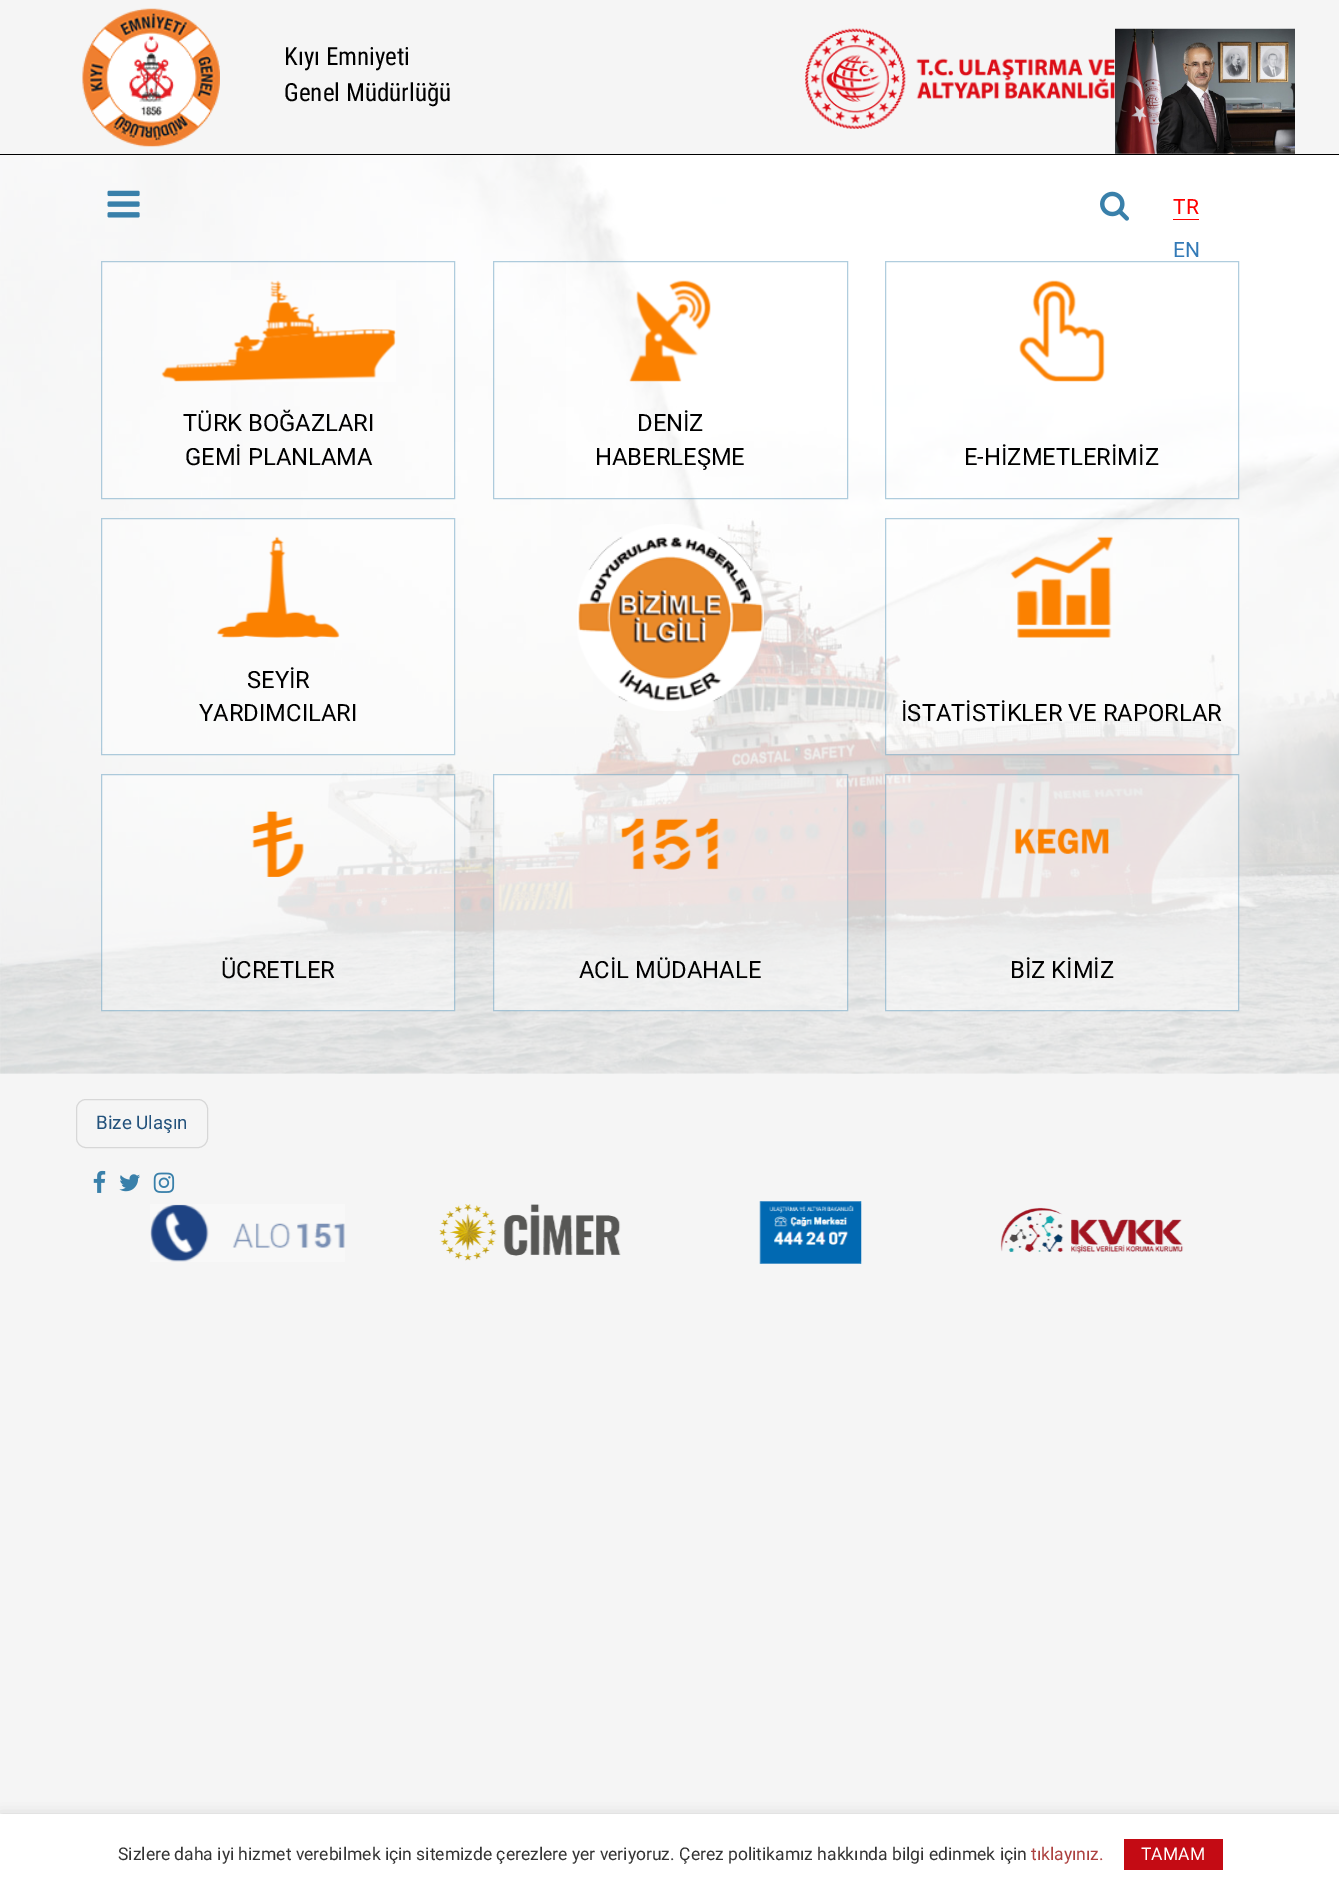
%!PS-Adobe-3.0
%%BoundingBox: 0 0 1339 1895
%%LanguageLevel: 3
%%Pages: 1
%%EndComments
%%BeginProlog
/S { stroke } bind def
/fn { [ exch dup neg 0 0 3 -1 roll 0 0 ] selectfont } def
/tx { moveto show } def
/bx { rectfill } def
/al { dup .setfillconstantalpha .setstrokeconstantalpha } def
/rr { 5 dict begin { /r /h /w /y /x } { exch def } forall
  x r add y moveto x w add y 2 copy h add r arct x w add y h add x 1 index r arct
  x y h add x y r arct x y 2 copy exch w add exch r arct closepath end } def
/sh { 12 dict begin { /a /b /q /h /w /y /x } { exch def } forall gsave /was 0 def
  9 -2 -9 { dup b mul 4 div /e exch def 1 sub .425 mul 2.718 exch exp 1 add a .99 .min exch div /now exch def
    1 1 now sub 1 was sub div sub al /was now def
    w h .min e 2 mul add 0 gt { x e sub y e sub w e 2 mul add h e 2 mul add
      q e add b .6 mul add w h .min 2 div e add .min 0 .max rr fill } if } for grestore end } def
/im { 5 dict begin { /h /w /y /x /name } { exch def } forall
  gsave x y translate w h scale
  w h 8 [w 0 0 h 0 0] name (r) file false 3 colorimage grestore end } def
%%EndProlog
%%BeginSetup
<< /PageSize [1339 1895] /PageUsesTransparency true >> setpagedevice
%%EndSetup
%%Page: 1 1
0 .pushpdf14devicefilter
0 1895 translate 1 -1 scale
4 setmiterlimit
0.961 setgray
0 0 1339 1895 bx
0 setgray
0 154 1339 1 bx
(image0.raw) 82 8 138 139 im
/RobotoCondensed-Regular 25 fn
(Kıyı Emniyeti) 284 65 tx
(Genel Müdürlüğü) 284 101 tx
(image1.raw) 805 28 310 101 im
(image2.raw) 1115 28 180 126 im
(image5.raw) 0 155 1339 919 im
(image3.raw) 107 190 33 28 im
(image4.raw) 1100 191 29 30 im
/Roboto-Regular 21 fn
1 0 0 setrgbcolor
(TR) 1173 214 tx
1173 219 26 1 bx
0.2 0.478 0.718 setrgbcolor
(EN) 1173 257 tx
0.4 al
1 setgray
101 261 130 238 bx
0.224 0.51 0.675 setrgbcolor
101.5 261.5 353 237 rectstroke
1 al
(image6.raw) 161 280 235 102 im
/Roboto-Regular 23.75 fn
0 setgray
(TÜRK BOĞAZLARI) 183 431 tx
(GEMİ PLANLAMA) 185 465 tx
0.4 al
1 setgray
566 261 130 238 bx
0.224 0.51 0.675 setrgbcolor
493.5 261.5 354 237 rectstroke
1 al
(image7.raw) 629 280 82 102 im
0 setgray
(DENİZ) 637 431 tx
(HABERLEŞME) 595 465 tx
0.4 al
1 setgray
1149 468 90 31 bx
0.224 0.51 0.675 setrgbcolor
885.5 261.5 353 237 rectstroke
1 al
(image8.raw) 1019 280 86 102 im
0 setgray
(E-HİZMETLERİMİZ) 964 465 tx
0.4 al
1 setgray
101 518 354 237 bx
0.224 0.51 0.675 setrgbcolor
101.5 518.5 353 236 rectstroke
1 al
(image9.raw) 217 536 123 102 im
0 setgray
(SEYİR) 247 688 tx
(YARDIMCILARI) 199 721 tx
(image10.raw) 577 524 187 187 im
0.4 al
1 setgray
885 518 354 237 bx
0.224 0.51 0.675 setrgbcolor
885.5 518.5 353 236 rectstroke
1 al
(image11.raw) 1010 536 103 102 im
0 setgray
(İSTATİSTİKLER VE RAPORLAR) 901 721 tx
0.4 al
1 setgray
101 774 354 237 bx
0.224 0.51 0.675 setrgbcolor
101.5 774.5 353 236 rectstroke
1 al
(image12.raw) 252 811 52 66 im
0 setgray
(ÜCRETLER) 221 978 tx
0.4 al
1 setgray
493 774 355 237 bx
0.224 0.51 0.675 setrgbcolor
493.5 774.5 354 236 rectstroke
1 al
(image13.raw) 621 818 98 52 im
0 setgray
(ACİL MÜDAHALE) 579 978 tx
0.4 al
1 setgray
885 774 354 237 bx
0.224 0.51 0.675 setrgbcolor
885.5 774.5 353 236 rectstroke
1 al
(image14.raw) 1015 828 94 26 im
0 setgray
(BİZ KİMİZ) 1010 978 tx
0.843 setgray
76.5 1099.5 131 48 9.5 rr S
/Roboto-Regular 18.75 fn
0.137 0.322 0.486 setrgbcolor
(Bize Ulaşın) 96 1129 tx
(image15.raw) 93 1170 13 23 im
(image16.raw) 119 1174 21 18 im
(image17.raw) 153 1172 22 21 im
(image18.raw) 150 1204 195 58 im
(image19.raw) 439 1204 182 57 im
(image20.raw) 759 1201 103 63 im
(image21.raw) 1000 1207 184 47 im
0 setgray
0 1819 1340 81 0 7.5 0.3 sh
1 setgray
0 1814 1339 81 bx
/Roboto-Regular 17.5 fn
0.2 setgray
(Sizlere daha iyi hizmet verebilmek için sitemizde çerezlere yer veriyoruz. Çerez politikamız hakkında bilgi edinmek için) 118 1860 tx
0.675 0.251 0.243 setrgbcolor
(tıklayınız.) 1031 1860 tx
0.769 0.043 0.078 setrgbcolor
1124 1839 99 31 bx
1 setgray
(TAMAM) 1141 1860 tx
.poppdf14devicefilter showpage
%%EOF
